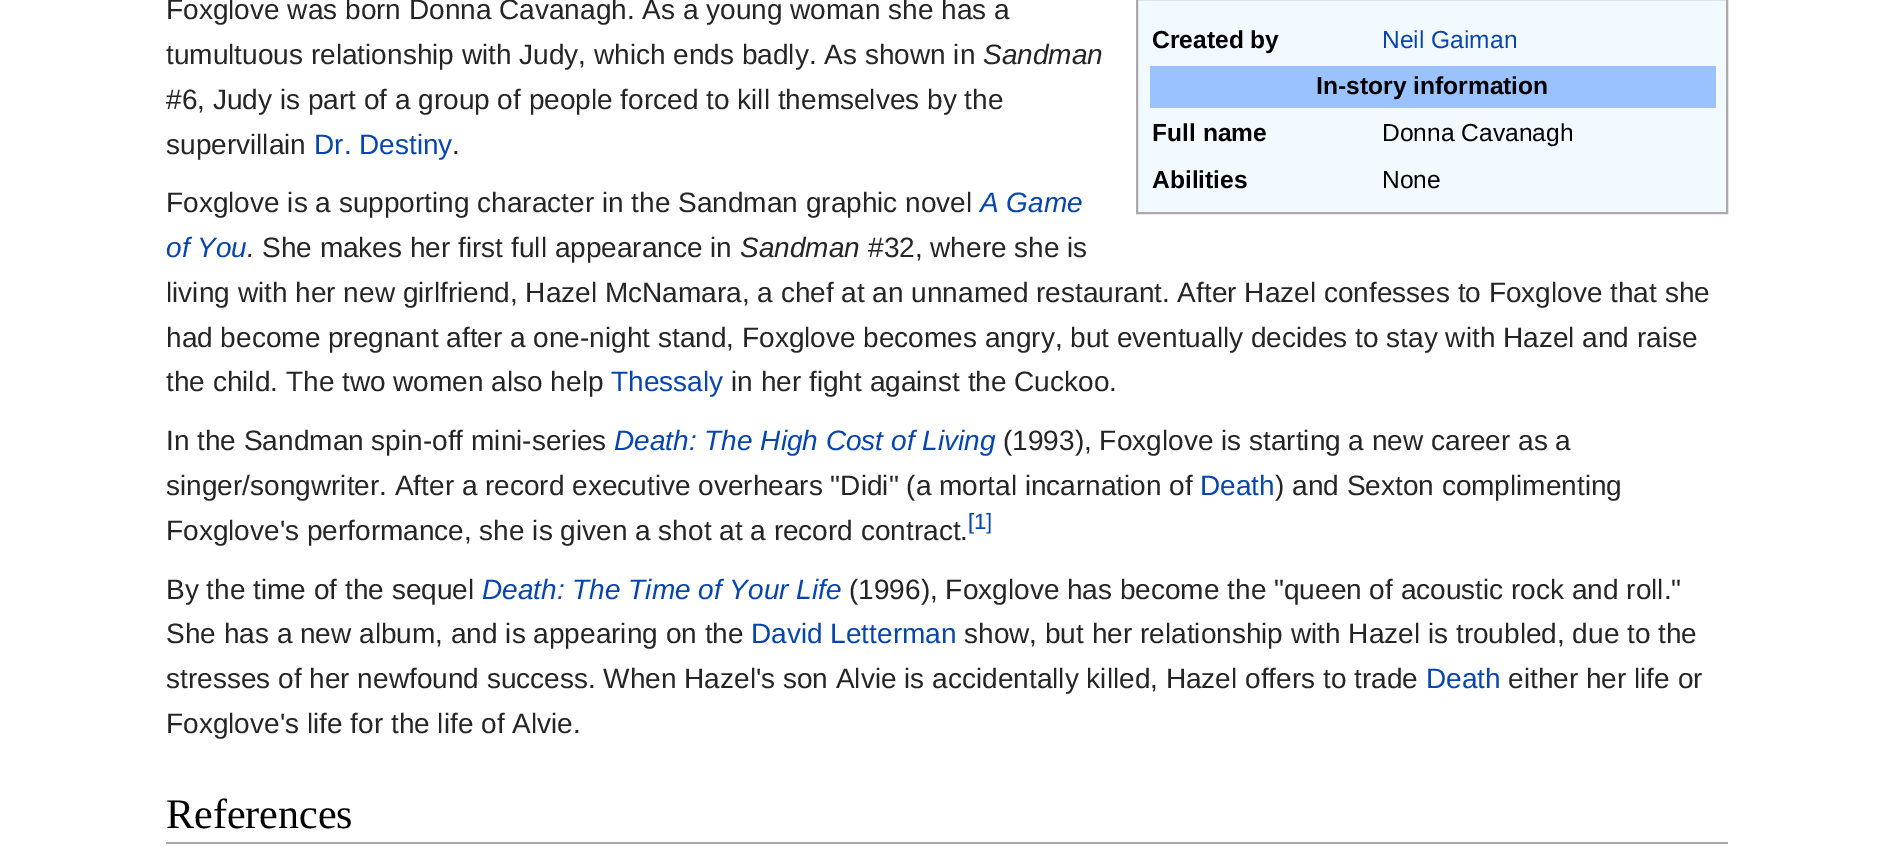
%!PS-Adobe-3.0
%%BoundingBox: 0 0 1893 851
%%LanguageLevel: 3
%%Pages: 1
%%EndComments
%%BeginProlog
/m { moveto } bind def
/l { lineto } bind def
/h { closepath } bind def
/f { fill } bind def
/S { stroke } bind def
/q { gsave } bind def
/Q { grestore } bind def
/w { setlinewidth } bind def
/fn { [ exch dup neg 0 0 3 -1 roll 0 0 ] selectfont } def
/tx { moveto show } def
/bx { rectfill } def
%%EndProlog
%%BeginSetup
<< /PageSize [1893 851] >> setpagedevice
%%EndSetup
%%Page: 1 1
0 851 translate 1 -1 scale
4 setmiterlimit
1 setgray
0 0 1893 851 bx
/LiberationSans-Regular 28 fn
0.145 setgray
(Foxglove was born Donna Cavanagh. As a young woman she has a) 166 19 tx
(tumultuous relationship with Judy, which ends badly. As shown in) 166 64 tx
/LiberationSans-Italic 28 fn
(Sandman) 983 64 tx
/LiberationSans-Regular 28 fn
(#6, Judy is part of a group of people forced to kill themselves by the) 166 109 tx
(supervillain) 166 154 tx
0.024 0.271 0.678 setrgbcolor
(Dr. Destiny) 314 154 tx
0.145 setgray
(.) 452 154 tx
0.949 0.976 1 setrgbcolor
1137 -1 m 1727 -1 l 1727 213 l 1137 213 l h q f Q
0.667 setgray
2 w
S
/LiberationSans-Bold 24.6 fn
0 setgray
(Created by) 1152 48 tx
/LiberationSans-Regular 24.6 fn
0.024 0.271 0.678 setrgbcolor
(Neil Gaiman) 1382 48 tx
0.6 0.761 1 setrgbcolor
1150 66 566 42 bx
/LiberationSans-Bold 24.6 fn
0 setgray
(In-story information) 1316 94 tx
(Full name) 1152 141 tx
/LiberationSans-Regular 24.6 fn
(Donna Cavanagh) 1382 141 tx
/LiberationSans-Bold 24.6 fn
(Abilities) 1152 188 tx
/LiberationSans-Regular 24.6 fn
(None) 1382 188 tx
/LiberationSans-Regular 28 fn
0.145 setgray
(Foxglove is a supporting character in the Sandman graphic novel) 166 212 tx
/LiberationSans-Italic 28 fn
0.024 0.271 0.678 setrgbcolor
(A Game) 980 212 tx
(of You) 166 257 tx
0.145 setgray
(.) 247 257 tx
/LiberationSans-Regular 28 fn
(She makes her first full appearance in) 262 257 tx
/LiberationSans-Italic 28 fn
(Sandman) 740 257 tx
/LiberationSans-Regular 28 fn
(#32, where she is) 868 257 tx
(living with her new girlfriend, Hazel McNamara, a chef at an unnamed restaurant. After Hazel confesses to Foxglove that she) 166 302 tx
(had become pregnant after a one-night stand, Foxglove becomes angry, but eventually decides to stay with Hazel and raise) 166 347 tx
(the child. The two women also help) 166 391 tx
0.024 0.271 0.678 setrgbcolor
(Thessaly) 611 391 tx
0.145 setgray
(in her fight against the Cuckoo.) 731 391 tx
(In the Sandman spin-off mini-series) 166 450 tx
/LiberationSans-Italic 28 fn
0.024 0.271 0.678 setrgbcolor
(Death: The High Cost of Living) 614 450 tx
/LiberationSans-Regular 28 fn
0.145 setgray
(\(1993\), Foxglove is starting a new career as a) 1003 450 tx
(singer/songwriter. After a record executive overhears "Didi" \(a mortal incarnation of) 166 495 tx
0.024 0.271 0.678 setrgbcolor
(Death) 1200 495 tx
0.145 setgray
(\) and Sexton complimenting) 1275 495 tx
(Foxglove's performance, she is given a shot at a record contract.) 166 540 tx
/LiberationSans-Regular 22 fn
0.024 0.271 0.678 setrgbcolor
([1]) 968 529 tx
/LiberationSans-Regular 28 fn
0.145 setgray
(By the time of the sequel) 166 599 tx
/LiberationSans-Italic 28 fn
0.024 0.271 0.678 setrgbcolor
(Death: The Time of Your Life) 482 599 tx
/LiberationSans-Regular 28 fn
0.145 setgray
(\(1996\), Foxglove has become the "queen of acoustic rock and roll.") 849 599 tx
(She has a new album, and is appearing on the) 166 643 tx
0.024 0.271 0.678 setrgbcolor
(David Letterman) 751 643 tx
0.145 setgray
(show, but her relationship with Hazel is troubled, due to the) 964 643 tx
(stresses of her newfound success. When Hazel's son Alvie is accidentally killed, Hazel offers to trade) 166 688 tx
0.024 0.271 0.678 setrgbcolor
(Death) 1426 688 tx
0.145 setgray
(either her life or) 1508 688 tx
(Foxglove's life for the life of Alvie.) 166 733 tx
0.667 setgray
166 842 1562 2 bx
/LiberationSerif-Regular 42 fn
0 setgray
(References) 166 828 tx
showpage
%%EOF
